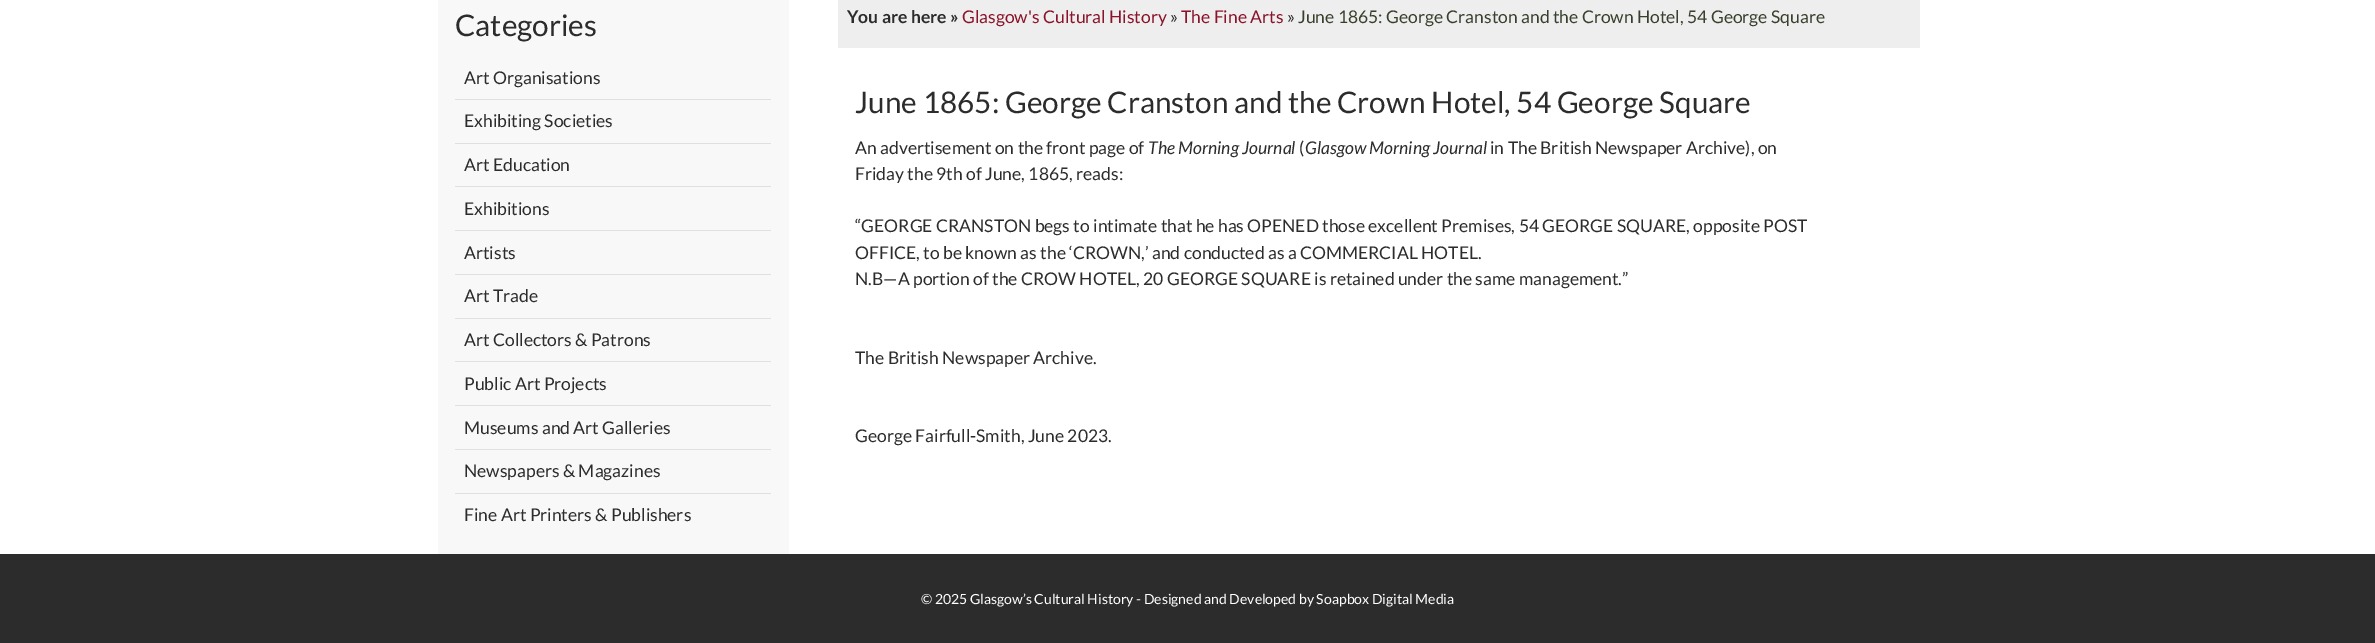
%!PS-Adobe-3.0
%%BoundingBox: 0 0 2375 643
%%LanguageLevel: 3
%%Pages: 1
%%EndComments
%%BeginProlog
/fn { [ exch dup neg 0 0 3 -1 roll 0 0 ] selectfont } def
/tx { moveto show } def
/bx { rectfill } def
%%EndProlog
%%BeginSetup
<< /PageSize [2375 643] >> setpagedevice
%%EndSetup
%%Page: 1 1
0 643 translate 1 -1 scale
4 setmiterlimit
1 setgray
0 0 2375 643 bx
0.973 setgray
438 0 351 554 bx
/Lato-Regular 29.75 fn
0.173 setgray
(Categories) 455 36 tx
0.878 setgray
455 99 316 1 bx
/Lato-Regular 17.5 fn
0.173 setgray
(Art Organisations) 464 84 tx
0.878 setgray
455 143 316 1 bx
0.173 setgray
(Exhibiting Societies) 464 127 tx
0.878 setgray
455 186 316 1 bx
0.173 setgray
(Art Education) 464 171 tx
0.878 setgray
455 230 316 1 bx
0.173 setgray
(Exhibitions) 464 215 tx
0.878 setgray
455 274 316 1 bx
0.173 setgray
(Artists) 464 259 tx
0.878 setgray
455 318 316 1 bx
0.173 setgray
(Art Trade) 464 302 tx
0.878 setgray
455 361 316 1 bx
0.173 setgray
(Art Collectors & Patrons) 464 346 tx
0.878 setgray
455 405 316 1 bx
0.173 setgray
(Public Art Projects) 464 390 tx
0.878 setgray
455 449 316 1 bx
0.173 setgray
(Museums and Art Galleries) 464 434 tx
0.878 setgray
455 493 316 1 bx
0.173 setgray
(Newspapers & Magazines) 464 477 tx
(Fine Art Printers & Publishers) 464 521 tx
0.933 setgray
838 0 1082 48 bx
/Lato-Bold 17.5 fn
0.173 setgray
(You are here ») 847 23 tx
/Lato-Regular 17.5 fn
0.541 0.075 0.161 setrgbcolor
(Glasgow's Cultural History) 962 23 tx
0.173 setgray
(») 1170 23 tx
0.541 0.075 0.161 setrgbcolor
(The Fine Arts) 1181 23 tx
0.173 setgray
(») 1287 23 tx
0.22 0.251 0.173 setrgbcolor
(June 1865: George Cranston and the Crown Hotel, 54 George Square) 1298 23 tx
/Lato-Regular 29.75 fn
0.173 setgray
(June 1865: George Cranston and the Crown Hotel, 54 George Square) 855 113 tx
/Lato-Regular 17.5 fn
(An advertisement on the front page of) 855 154 tx
/Lato-Italic 17.5 fn
(The Morning Journal) 1148 154 tx
/Lato-Regular 17.5 fn
(\() 1299 154 tx
/Lato-Italic 17.5 fn
(Glasgow Morning Journal) 1305 154 tx
/Lato-Regular 17.5 fn
(in The British Newspaper Archive\), on) 1490 154 tx
(Friday the 9th of June, 1865, reads:) 855 180 tx
(“GEORGE CRANSTON begs to intimate that he has OPENED those excellent Premises, 54 GEORGE SQUARE, opposite POST) 855 232 tx
(OFFICE, to be known as the ‘CROWN,’ and conducted as a COMMERCIAL HOTEL.) 855 259 tx
(N.B—A portion of the CROW HOTEL, 20 GEORGE SQUARE is retained under the same management.”) 855 285 tx
(The British Newspaper Archive.) 855 364 tx
(George Fairfull-Smith, June 2023.) 855 442 tx
0 554 2375 89 bx
/Lato-Regular 14 fn
1 setgray
(© 2025 Glasgow’s Cultural History - Designed and Developed by Soapbox Digital Media) 921 604 tx
showpage
%%EOF
